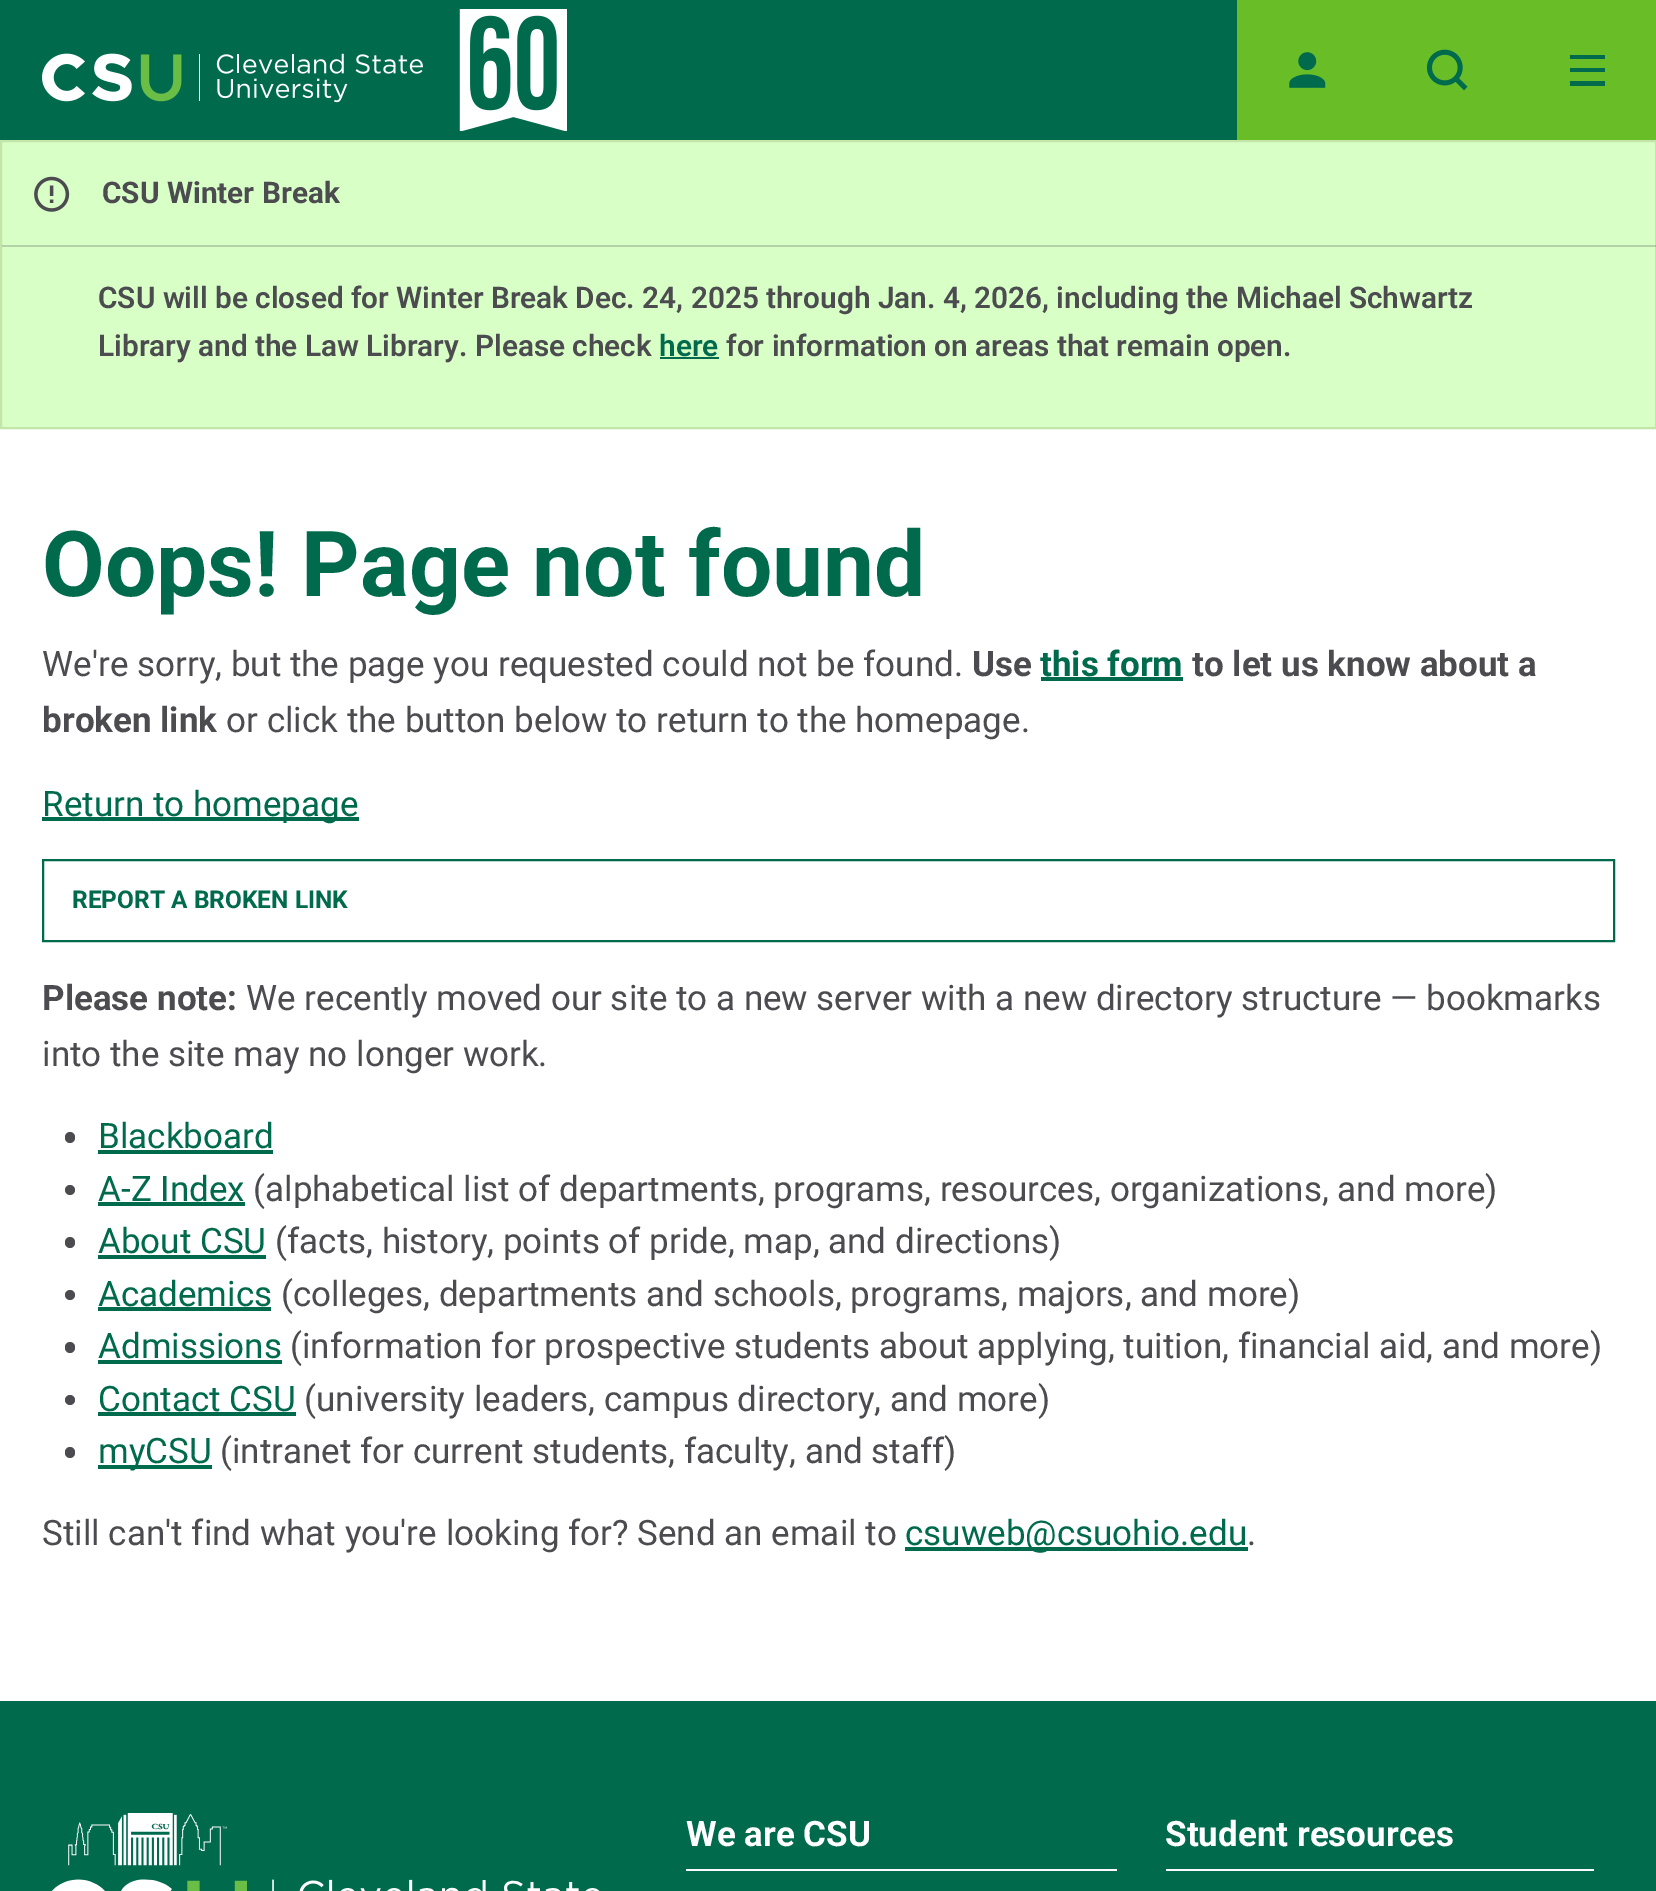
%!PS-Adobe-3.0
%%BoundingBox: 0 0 1656 1891
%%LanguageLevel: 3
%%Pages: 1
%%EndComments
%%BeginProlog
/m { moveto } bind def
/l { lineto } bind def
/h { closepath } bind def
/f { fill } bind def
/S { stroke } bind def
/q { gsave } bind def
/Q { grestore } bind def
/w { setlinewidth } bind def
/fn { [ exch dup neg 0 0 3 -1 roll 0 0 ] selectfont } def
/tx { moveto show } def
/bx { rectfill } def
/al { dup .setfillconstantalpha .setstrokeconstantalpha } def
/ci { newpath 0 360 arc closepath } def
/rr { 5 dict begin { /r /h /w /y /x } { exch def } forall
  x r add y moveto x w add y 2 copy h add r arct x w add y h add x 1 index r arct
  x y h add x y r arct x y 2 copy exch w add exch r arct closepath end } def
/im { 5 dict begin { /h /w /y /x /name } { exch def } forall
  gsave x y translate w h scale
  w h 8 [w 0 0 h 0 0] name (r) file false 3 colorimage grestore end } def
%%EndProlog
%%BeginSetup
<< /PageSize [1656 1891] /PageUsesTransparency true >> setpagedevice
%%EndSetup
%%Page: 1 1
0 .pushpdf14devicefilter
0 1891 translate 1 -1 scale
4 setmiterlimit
1 setgray
0 0 1656 1891 bx
0 0.416 0.302 setrgbcolor
0 0 1237 140 bx
(image0.raw) 42 9 525 122 im
0.412 0.745 0.157 setrgbcolor
1237 0 419 140 bx
(image1.raw) 1289 52 37 36 im
(image2.raw) 1426 49 42 42 im
0 0.416 0.302 setrgbcolor
1570 55 35 4 bx
1570 68 35 4 bx
1570 81 35 5 bx
0.843 1 0.776 setrgbcolor
1 141 m 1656 141 l 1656 428 l 1 428 l h q f Q
0.765 0.898 0.663 setrgbcolor
2 w
S
(image3.raw) 34 176 36 36 im
/Roboto-Bold 29.75 fn
0.294 0.294 0.314 setrgbcolor
(CSU Winter Break) 102 203 tx
0.25 al
2 245 1654 2 bx
/Roboto-SemiBold 29.75 fn
1 al
(CSU will be closed for Winter Break Dec. 24, 2025 through Jan. 4, 2026, including the Michael Schwartz) 98 308 tx
(Library and the Law Library. Please check) 98 356 tx
0 0.416 0.302 setrgbcolor
(here) 659 356 tx
660 357 59 2 bx
0.294 0.294 0.314 setrgbcolor
(for information on areas that remain open.) 726 356 tx
/Roboto-Bold 91 fn
0 0.416 0.302 setrgbcolor
(Oops! Page not found) 42 596 tx
/Roboto-Regular 35 fn
0.294 0.294 0.314 setrgbcolor
(We're sorry, but the page you requested could not be found.) 42 676 tx
/Roboto-Bold 35 fn
(Use) 972 676 tx
0 0.416 0.302 setrgbcolor
(this form) 1040 676 tx
1041 677 142 4 bx
0.294 0.294 0.314 setrgbcolor
(to let us know about a) 1192 676 tx
(broken link) 42 732 tx
/Roboto-Regular 35 fn
(or click the button below to return to the homepage.) 226 732 tx
0 0.416 0.302 setrgbcolor
42 817 317 4 bx
(Return to homepage) 42 816 tx
43 860 1571 81 rectstroke
/Roboto-Bold 24.5 fn
(REPORT A BROKEN LINK) 72 908 tx
/Roboto-Bold 35 fn
0.294 0.294 0.314 setrgbcolor
(Please note:) 42 1010 tx
/Roboto-Regular 35 fn
(We recently moved our site to a new server with a new directory structure — bookmarks) 246 1010 tx
(into the site may no longer work.) 42 1066 tx
65 1132 10 11 5 rr f
0 0.416 0.302 setrgbcolor
(Blackboard) 98 1148 tx
98 1150 175 4 bx
0.294 0.294 0.314 setrgbcolor
70 1190 5 ci f
0 0.416 0.302 setrgbcolor
(A-Z Index) 98 1201 tx
98 1202 147 4 bx
0.294 0.294 0.314 setrgbcolor
(\(alphabetical list of departments, programs, resources, organizations, and more\)) 253 1201 tx
65 1237 10 11 5 rr f
0 0.416 0.302 setrgbcolor
(About CSU) 98 1253 tx
98 1255 168 4 bx
0.294 0.294 0.314 setrgbcolor
(\(facts, history, points of pride, map, and directions\)) 275 1253 tx
70 1295 5 ci f
0 0.416 0.302 setrgbcolor
(Academics) 98 1306 tx
98 1307 173 4 bx
0.294 0.294 0.314 setrgbcolor
(\(colleges, departments and schools, programs, majors, and more\)) 281 1306 tx
65 1342 10 11 5 rr f
0 0.416 0.302 setrgbcolor
(Admissions) 98 1358 tx
98 1360 184 4 bx
0.294 0.294 0.314 setrgbcolor
(\(information for prospective students about applying, tuition, financial aid, and more\)) 290 1358 tx
70 1400 5 ci f
0 0.416 0.302 setrgbcolor
(Contact CSU) 98 1411 tx
98 1412 198 4 bx
0.294 0.294 0.314 setrgbcolor
(\(university leaders, campus directory, and more\)) 304 1411 tx
65 1447 10 11 5 rr f
0 0.416 0.302 setrgbcolor
98 1465 114 4 bx
(myCSU) 98 1463 tx
0.294 0.294 0.314 setrgbcolor
(\(intranet for current students, faculty, and staff\)) 220 1463 tx
(Still can't find what you're looking for? Send an email to) 42 1545 tx
0 0.416 0.302 setrgbcolor
905 1547 343 4 bx
(csuweb@csuohio.edu) 905 1545 tx
0.294 0.294 0.314 setrgbcolor
(.) 1247 1545 tx
0 0.416 0.302 setrgbcolor
0 1701 1656 190 bx
(image4.raw) 52 1813 548 78 im
0.976 0.98 0.984 setrgbcolor
686 1869 431 2 bx
/Roboto-Bold 35 fn
1 setgray
(We are CSU) 686 1846 tx
0.976 0.98 0.984 setrgbcolor
1166 1869 428 2 bx
1 setgray
(Student resources) 1165 1846 tx
.poppdf14devicefilter showpage
%%EOF
